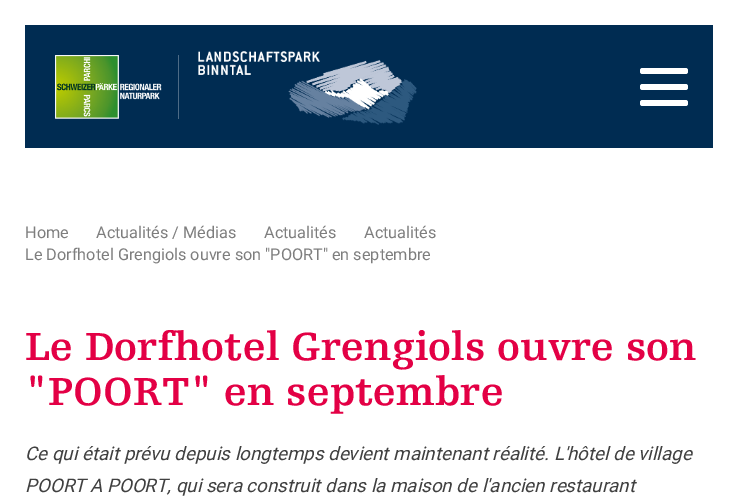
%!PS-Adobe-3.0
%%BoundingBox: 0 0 737 497
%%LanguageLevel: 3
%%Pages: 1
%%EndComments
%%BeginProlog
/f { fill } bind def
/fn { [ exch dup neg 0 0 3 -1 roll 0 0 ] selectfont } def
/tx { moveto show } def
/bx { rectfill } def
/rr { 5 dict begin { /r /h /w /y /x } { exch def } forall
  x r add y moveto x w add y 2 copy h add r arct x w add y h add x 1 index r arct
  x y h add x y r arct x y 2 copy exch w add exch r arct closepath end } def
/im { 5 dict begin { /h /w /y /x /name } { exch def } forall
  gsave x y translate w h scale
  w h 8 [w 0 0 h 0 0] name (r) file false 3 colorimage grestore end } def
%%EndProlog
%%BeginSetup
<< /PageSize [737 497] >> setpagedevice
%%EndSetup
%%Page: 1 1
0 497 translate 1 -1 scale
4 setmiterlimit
1 setgray
0 0 737 497 bx
0 0.173 0.322 setrgbcolor
25 25 688 123 bx
(image0.raw) 55 55 107 64 im
0.302 0.42 0.525 setrgbcolor
178 55 1 64 bx
(image1.raw) 198 51 219 74 im
1 setgray
640 68 48 6 2.5 rr f
640 84 48 6 2.5 rr f
640 100 48 6 2.5 rr f
/Roboto-Regular 16.25 fn
0.494 setgray
(Home) 25 238 tx
(Actualités / Médias) 96 238 tx
(Actualités) 264 238 tx
(Actualités) 364 238 tx
(Le Dorfhotel Grengiols ouvre son "POORT" en septembre) 25 260 tx
/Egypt-Bold 41.25 fn
0.89 0 0.271 setrgbcolor
(Le Dorfhotel Grengiols ouvre son) 25 360 tx
("POORT" en septembre) 25 405 tx
/Roboto-Italic 18.75 fn
0.251 setgray
(Ce qui était prévu depuis longtemps devient maintenant réalité. L'hôtel de village) 25 460 tx
(POORT A POORT, qui sera construit dans la maison de l'ancien restaurant) 25 492 tx
showpage
%%EOF
